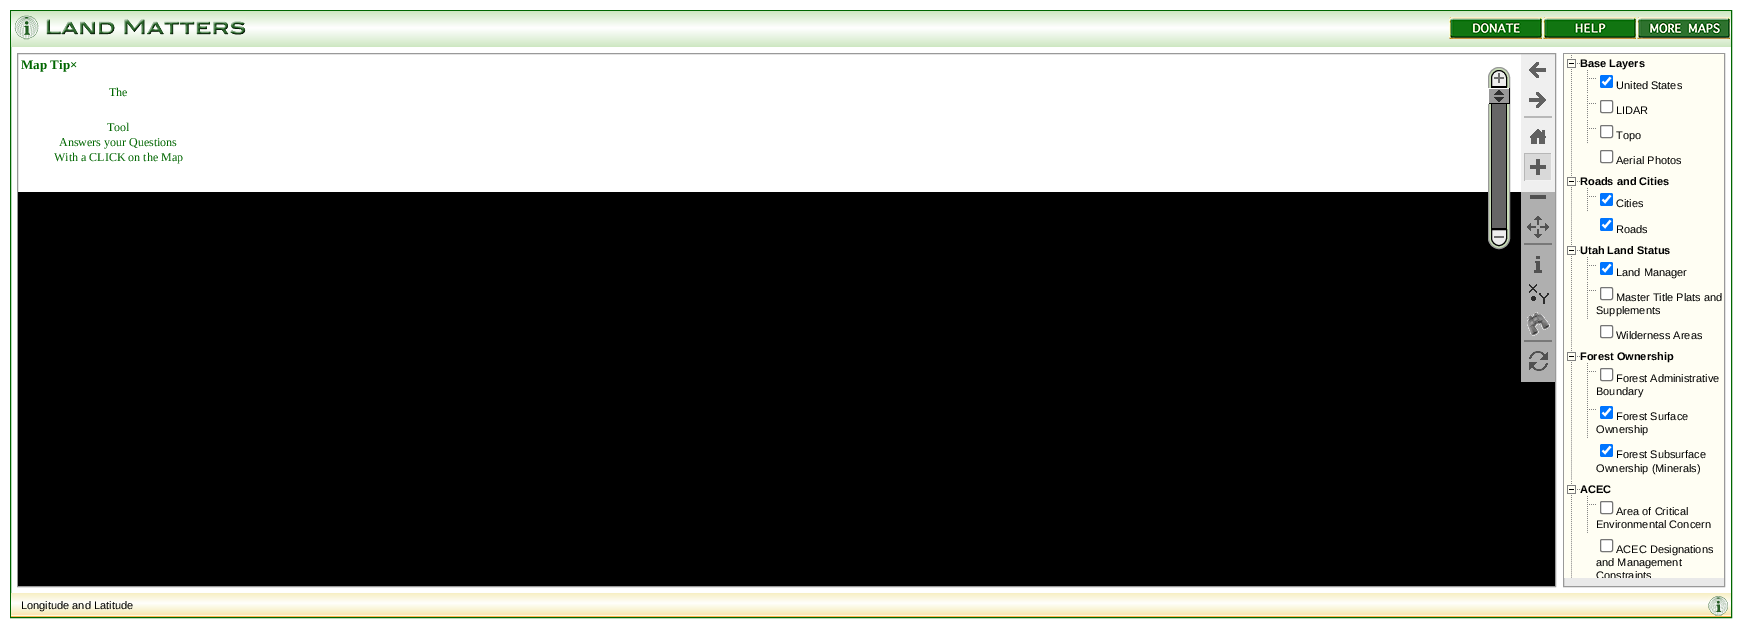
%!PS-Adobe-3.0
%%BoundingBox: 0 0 1742 628
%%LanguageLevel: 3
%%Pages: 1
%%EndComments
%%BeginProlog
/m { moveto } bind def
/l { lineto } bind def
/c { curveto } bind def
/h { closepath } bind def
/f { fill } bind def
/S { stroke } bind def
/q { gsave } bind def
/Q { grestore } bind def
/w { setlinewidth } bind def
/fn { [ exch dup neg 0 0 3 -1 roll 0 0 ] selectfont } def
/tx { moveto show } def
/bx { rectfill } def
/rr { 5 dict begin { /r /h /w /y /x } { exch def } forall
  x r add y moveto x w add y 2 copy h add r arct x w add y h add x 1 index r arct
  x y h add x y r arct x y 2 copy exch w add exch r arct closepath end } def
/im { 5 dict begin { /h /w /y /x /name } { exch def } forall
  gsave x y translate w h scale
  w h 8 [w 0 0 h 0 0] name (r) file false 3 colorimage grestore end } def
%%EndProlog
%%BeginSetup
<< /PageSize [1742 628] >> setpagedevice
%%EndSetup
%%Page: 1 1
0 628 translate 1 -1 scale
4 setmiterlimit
1 setgray
0 0 1742 628 bx
0.937 setgray
1521 54 34 138 bx
0 0.4 0 setrgbcolor
10.5 10.5 1721 607 rectstroke
q 11 11 m 1731 11 l 1731 47 l 11 47 l h clip newpath
<< /ShadingType 2 /ColorSpace /DeviceRGB /Coords [1731 11 1731 47] /Extend [true true] /Function << /FunctionType 3 /Domain [0 1] /Functions [<< /FunctionType 2 /Domain [0 1] /C0 [0.808 0.906 0.761] /C1 [1 1 1] /N 1 >> << /FunctionType 2 /Domain [0 1] /C0 [1 1 1] /C1 [0.808 0.906 0.761] /N 1 >>] /Bounds [0.47] /Encode [0 1 0 1] >> >> shfill Q
(image0.raw) 14 15 232 25 im
(image1.raw) 1449 17 93 22 im
(image2.raw) 1543 17 93 22 im
(image3.raw) 1637 17 93 22 im
0.6 setgray
17.5 53.5 1538 533 rectstroke
/LiberationSerif-Bold 13 fn
0 0.4 0 setrgbcolor
(Map Tip×) 21 69 tx
/LiberationSerif-Regular 12 fn
(The) 109 96 tx
(Tool) 107 131 tx
(Answers your Questions) 59 146 tx
(With a CLICK on the Map) 54 161 tx
0 setgray
18 192 1537 394 bx
0.788 0.871 0.722 setrgbcolor
1488.5 67.5 21 181 10.5 rr q f Q
0.6 setgray
S
0.933 setgray
1499 70.5 m 1503 70.5 1506.5 74 1506.5 78 c 1506.5 86.5 l 1491.5 86.5 l 1491.5 78 l 1491.5 74 1495 70.5 1499 70.5 c h q f Q
0 setgray
S
(image4.raw) 1494 73 10 10 im
1491 87 16 142 bx
0.4 setgray
1492 104 14 124 bx
1 setgray
1488 88 22 1 bx
0 setgray
1509 88 1 16 bx
1488 103 22 1 bx
1 setgray
1488 88 1 16 bx
0.6 setgray
1489 89 20 14 bx
(image5.raw) 1494 90 10 12 im
0.933 setgray
1491.5 229.5 m 1506.5 229.5 l 1506.5 238 l 1506.5 242 1503 245.5 1499 245.5 c 1495 245.5 1491.5 242 1491.5 238 c h q f Q
0 setgray
S
0.435 setgray
1494 236 10 2 bx
(image6.raw) 1529 62 17 16 im
(image7.raw) 1529 92 17 16 im
0.722 setgray
1524 116 28 2 bx
(image8.raw) 1530 129 16 15 im
0.851 setgray
1525 154 26 26 bx
0.718 setgray
1524 153 28 1 bx
0.949 setgray
1551 153 1 28 bx
1524 180 28 1 bx
0.718 setgray
1524 153 1 28 bx
(image9.raw) 1530 159 16 16 im
0.686 setgray
1521 192 34 190 bx
0.314 setgray
1530 195 16 4 bx
(image10.raw) 1527 216 22 22 im
0.471 setgray
1524 243 28 2 bx
(image11.raw) 1534 256 8 17 im
(image12.raw) 1529 284 20 20 im
(image13.raw) 1527 312 23 24 im
1524 340 28 2 bx
(image14.raw) 1529 351 19 20 im
0.914 setgray
1564 578 160 8 bx
0.6 setgray
1563.5 53.5 161 533 rectstroke
1 0.996 0.953 setrgbcolor
1564 54 160 524 bx
(image15.raw) 1571 55 1 117 im
(image16.raw) 1567 59 13 9 im
/LiberationSans-Bold 11 fn
0 setgray
(Base Layers) 1580 67 tx
(image17.raw) 1587 70 9 24 im
0 0.459 1 setrgbcolor
1600 75 13 13 2 rr f
1 setgray
2.1 w
1602.5 81.5 m 1605 84 l 1610.5 77.5 l S
/LiberationSans-Regular 11 fn
0 setgray
(United States) 1616 89 tx
(image17.raw) 1587 95 9 24 im
1 setgray
1600.5 100.5 12 12 1.5 rr q f Q
0.463 setgray
1 w
S
0 setgray
(LIDAR) 1616 114 tx
(image17.raw) 1587 120 9 24 im
1 setgray
1600.5 125.5 12 12 1.5 rr q f Q
0.463 setgray
S
0 setgray
(Topo) 1616 139 tx
1 setgray
1600.5 150.5 12 12 1.5 rr q f Q
0.463 setgray
S
0 setgray
(Aerial Photos) 1616 164 tx
(image18.raw) 1571 173 1 68 im
(image19.raw) 1567 177 13 13 im
/LiberationSans-Bold 11 fn
(Roads and Cities) 1580 185 tx
(image17.raw) 1587 188 9 24 im
0 0.459 1 setrgbcolor
1600 193 13 13 2 rr f
1 setgray
2.1 w
1602.5 199.5 m 1605 202 l 1610.5 195.5 l S
/LiberationSans-Regular 11 fn
0 setgray
(Cities) 1616 207 tx
0 0.459 1 setrgbcolor
1600 218 13 13 2 rr f
1 setgray
1602.5 224.5 m 1605 227 l 1610.5 220.5 l S
0 setgray
(Roads) 1616 233 tx
(image20.raw) 1571 242 1 105 im
(image16.raw) 1567 246 13 9 im
/LiberationSans-Bold 11 fn
(Utah Land Status) 1580 254 tx
(image17.raw) 1587 257 9 24 im
0 0.459 1 setrgbcolor
1600 262 13 13 2 rr f
1 setgray
1602.5 268.5 m 1605 271 l 1610.5 264.5 l S
/LiberationSans-Regular 11 fn
0 setgray
(Land Manager) 1616 276 tx
(image21.raw) 1587 282 9 37 im
1 setgray
1600.5 287.5 12 12 1.5 rr q f Q
0.463 setgray
1 w
S
0 setgray
(Master Title Plats and) 1616 301 tx
(Supplements) 1596 314 tx
1 setgray
1600.5 325.5 12 12 1.5 rr q f Q
0.463 setgray
S
0 setgray
(Wilderness Areas) 1616 339 tx
(image22.raw) 1571 348 1 132 im
(image23.raw) 1567 352 13 13 im
/LiberationSans-Bold 11 fn
(Forest Ownership) 1580 360 tx
(image21.raw) 1587 363 9 37 im
1 setgray
1600.5 368.5 12 12 1.5 rr q f Q
0.463 setgray
S
/LiberationSans-Regular 11 fn
0 setgray
(Forest Administrative) 1616 382 tx
(Boundary) 1596 395 tx
(image21.raw) 1587 401 9 37 im
0 0.459 1 setrgbcolor
1600 406 13 13 2 rr f
1 setgray
2.1 w
1602.5 412.5 m 1605 415 l 1610.5 408.5 l S
0 setgray
(Forest Surface) 1616 420 tx
(Ownership) 1596 433 tx
0 0.459 1 setrgbcolor
1600 444 13 13 2 rr f
1 setgray
1602.5 450.5 m 1605 453 l 1610.5 446.5 l S
0 setgray
(Forest Subsurface) 1616 458 tx
(Ownership \(Minerals\)) 1596 472 tx
(image24.raw) 1571 481 1 97 im
(image25.raw) 1567 485 13 13 im
/LiberationSans-Bold 11 fn
(ACEC) 1580 493 tx
(image21.raw) 1587 496 9 37 im
1 setgray
1600.5 501.5 12 12 1.5 rr q f Q
0.463 setgray
1 w
S
/LiberationSans-Regular 11 fn
0 setgray
(Area of Critical) 1616 515 tx
(Environmental Concern) 1596 528 tx
1 setgray
1600.5 539.5 12 12 1.5 rr q f Q
0.463 setgray
S
0 setgray
(ACEC Designations) 1616 553 tx
(and Management) 1596 566 tx
q
1564 54 160 524 rectclip
(Constraints) 1596 579 tx
Q
q 11 593 m 1731 593 l 1731 617 l 11 617 l h clip newpath
<< /ShadingType 2 /ColorSpace /DeviceRGB /Coords [871 593 871 617] /Extend [true true] /Function << /FunctionType 3 /Domain [0 1] /Functions [<< /FunctionType 2 /Domain [0 1] /C0 [0.969 0.937 0.765] /C1 [1 1 0.988] /N 1 >> << /FunctionType 2 /Domain [0 1] /C0 [1 1 0.988] /C1 [0.969 0.937 0.765] /N 1 >> << /FunctionType 2 /Domain [0 1] /C0 [0.969 0.937 0.765] /C1 [1 0.89 0.702] /N 1 >> << /FunctionType 2 /Domain [0 1] /C0 [1 0.89 0.702] /C1 [0.996 1 0.89] /N 1 >> << /FunctionType 2 /Domain [0 1] /C0 [0.996 1 0.89] /C1 [0.949 0.831 0.596] /N 1 >> << /FunctionType 2 /Domain [0 1] /C0 [0.949 0.831 0.596] /C1 [0.98 0.71 0.306] /N 1 >>] /Bounds [0.42 0.8 0.9 0.94 0.98] /Encode [0 1 0 1 0 1 0 1 0 1 0 1] >> >> shfill Q
(Longitude and Latitude) 21 609 tx
(image26.raw) 1708 596 20 20 im
showpage
%%EOF
